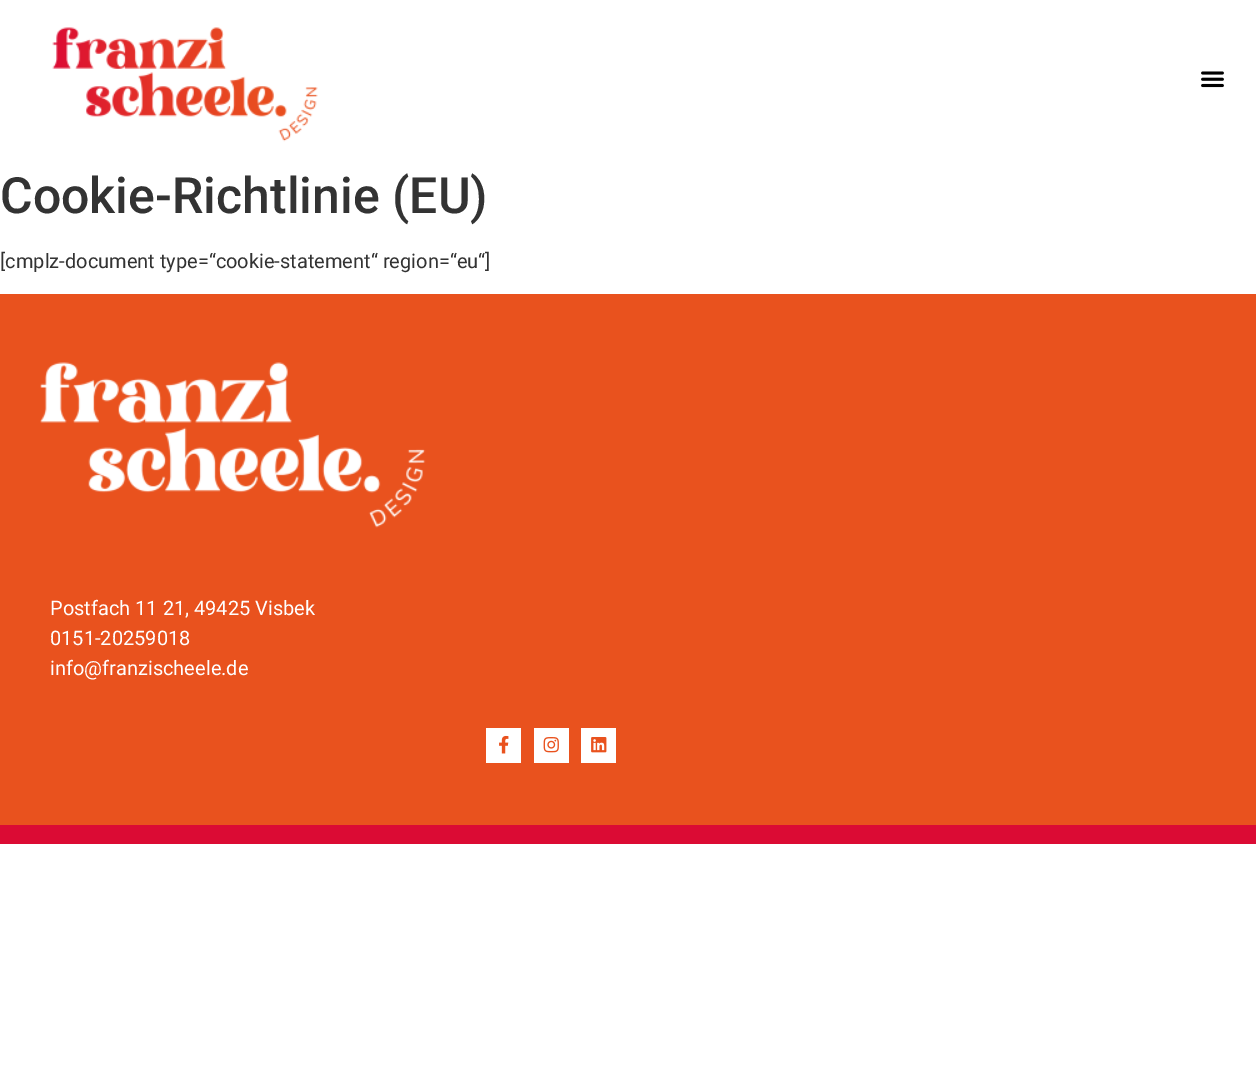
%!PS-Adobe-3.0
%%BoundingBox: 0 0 1256 1077
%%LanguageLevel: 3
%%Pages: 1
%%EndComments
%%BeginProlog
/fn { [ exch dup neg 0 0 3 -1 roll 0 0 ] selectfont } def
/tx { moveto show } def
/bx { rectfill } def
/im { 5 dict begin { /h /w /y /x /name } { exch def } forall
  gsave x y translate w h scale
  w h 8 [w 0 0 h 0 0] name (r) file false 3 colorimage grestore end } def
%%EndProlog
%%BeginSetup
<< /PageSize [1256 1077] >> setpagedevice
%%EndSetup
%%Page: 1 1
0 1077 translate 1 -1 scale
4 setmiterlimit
1 setgray
0 0 1256 1077 bx
(image0.raw) 52 27 266 115 im
(image1.raw) 1201 71 23 17 im
/Roboto-Medium 50 fn
0.2 setgray
(Cookie-Richtlinie \(EU\)) 0 213 tx
/Roboto-Regular 20 fn
([cmplz-document type=“cookie-statement“ region=“eu“]) 0 268 tx
0.914 0.322 0.118 setrgbcolor
0 294 1256 531 bx
(image2.raw) 40 362 386 166 im
1 setgray
(Postfach 11 21, 49425 Visbek) 50 615 tx
(0151-20259018) 50 645 tx
(info@franzischeele.de) 50 675 tx
486 728 35 35 bx
(image3.raw) 499 735 10 19 im
534 728 35 35 bx
(image4.raw) 543 737 16 16 im
581 728 35 35 bx
(image5.raw) 591 737 16 16 im
0.859 0.043 0.204 setrgbcolor
0 825 1256 19 bx
showpage
%%EOF
